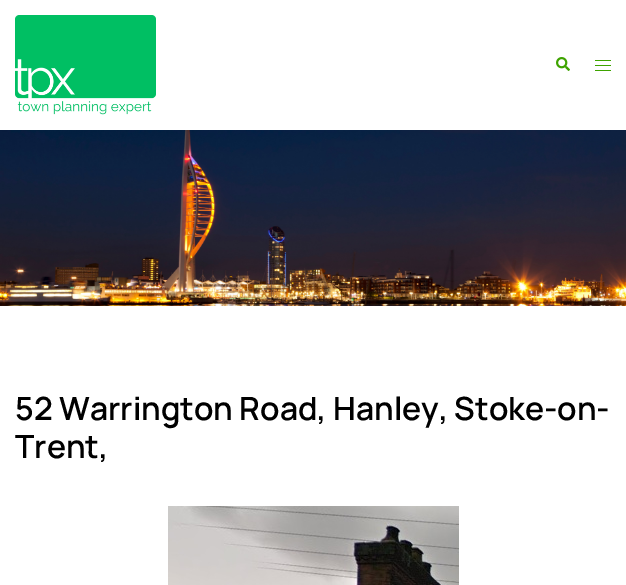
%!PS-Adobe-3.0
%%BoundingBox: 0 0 626 585
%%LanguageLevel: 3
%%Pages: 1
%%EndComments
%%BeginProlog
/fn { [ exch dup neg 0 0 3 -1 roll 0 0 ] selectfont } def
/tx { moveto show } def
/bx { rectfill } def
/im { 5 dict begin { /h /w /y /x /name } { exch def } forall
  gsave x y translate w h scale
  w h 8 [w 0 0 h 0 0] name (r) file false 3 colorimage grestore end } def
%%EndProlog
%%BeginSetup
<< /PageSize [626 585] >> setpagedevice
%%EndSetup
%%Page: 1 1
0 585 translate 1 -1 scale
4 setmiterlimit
1 setgray
0 0 626 585 bx
(image0.raw) 15 15 141 100 im
(image1.raw) 556 57 14 14 im
0.243 0.639 0 setrgbcolor
595 60 16 1 bx
595 65 16 1 bx
595 70 16 1 bx
(image2.raw) 0 130 626 176 im
/Manrope-ExtraLight 32 fn
0 setgray
(52 Warrington Road, Hanley, Stoke-on-) 15 420 tx
(Trent,) 15 458 tx
(image3.raw) 168 506 291 79 im
showpage
%%EOF
